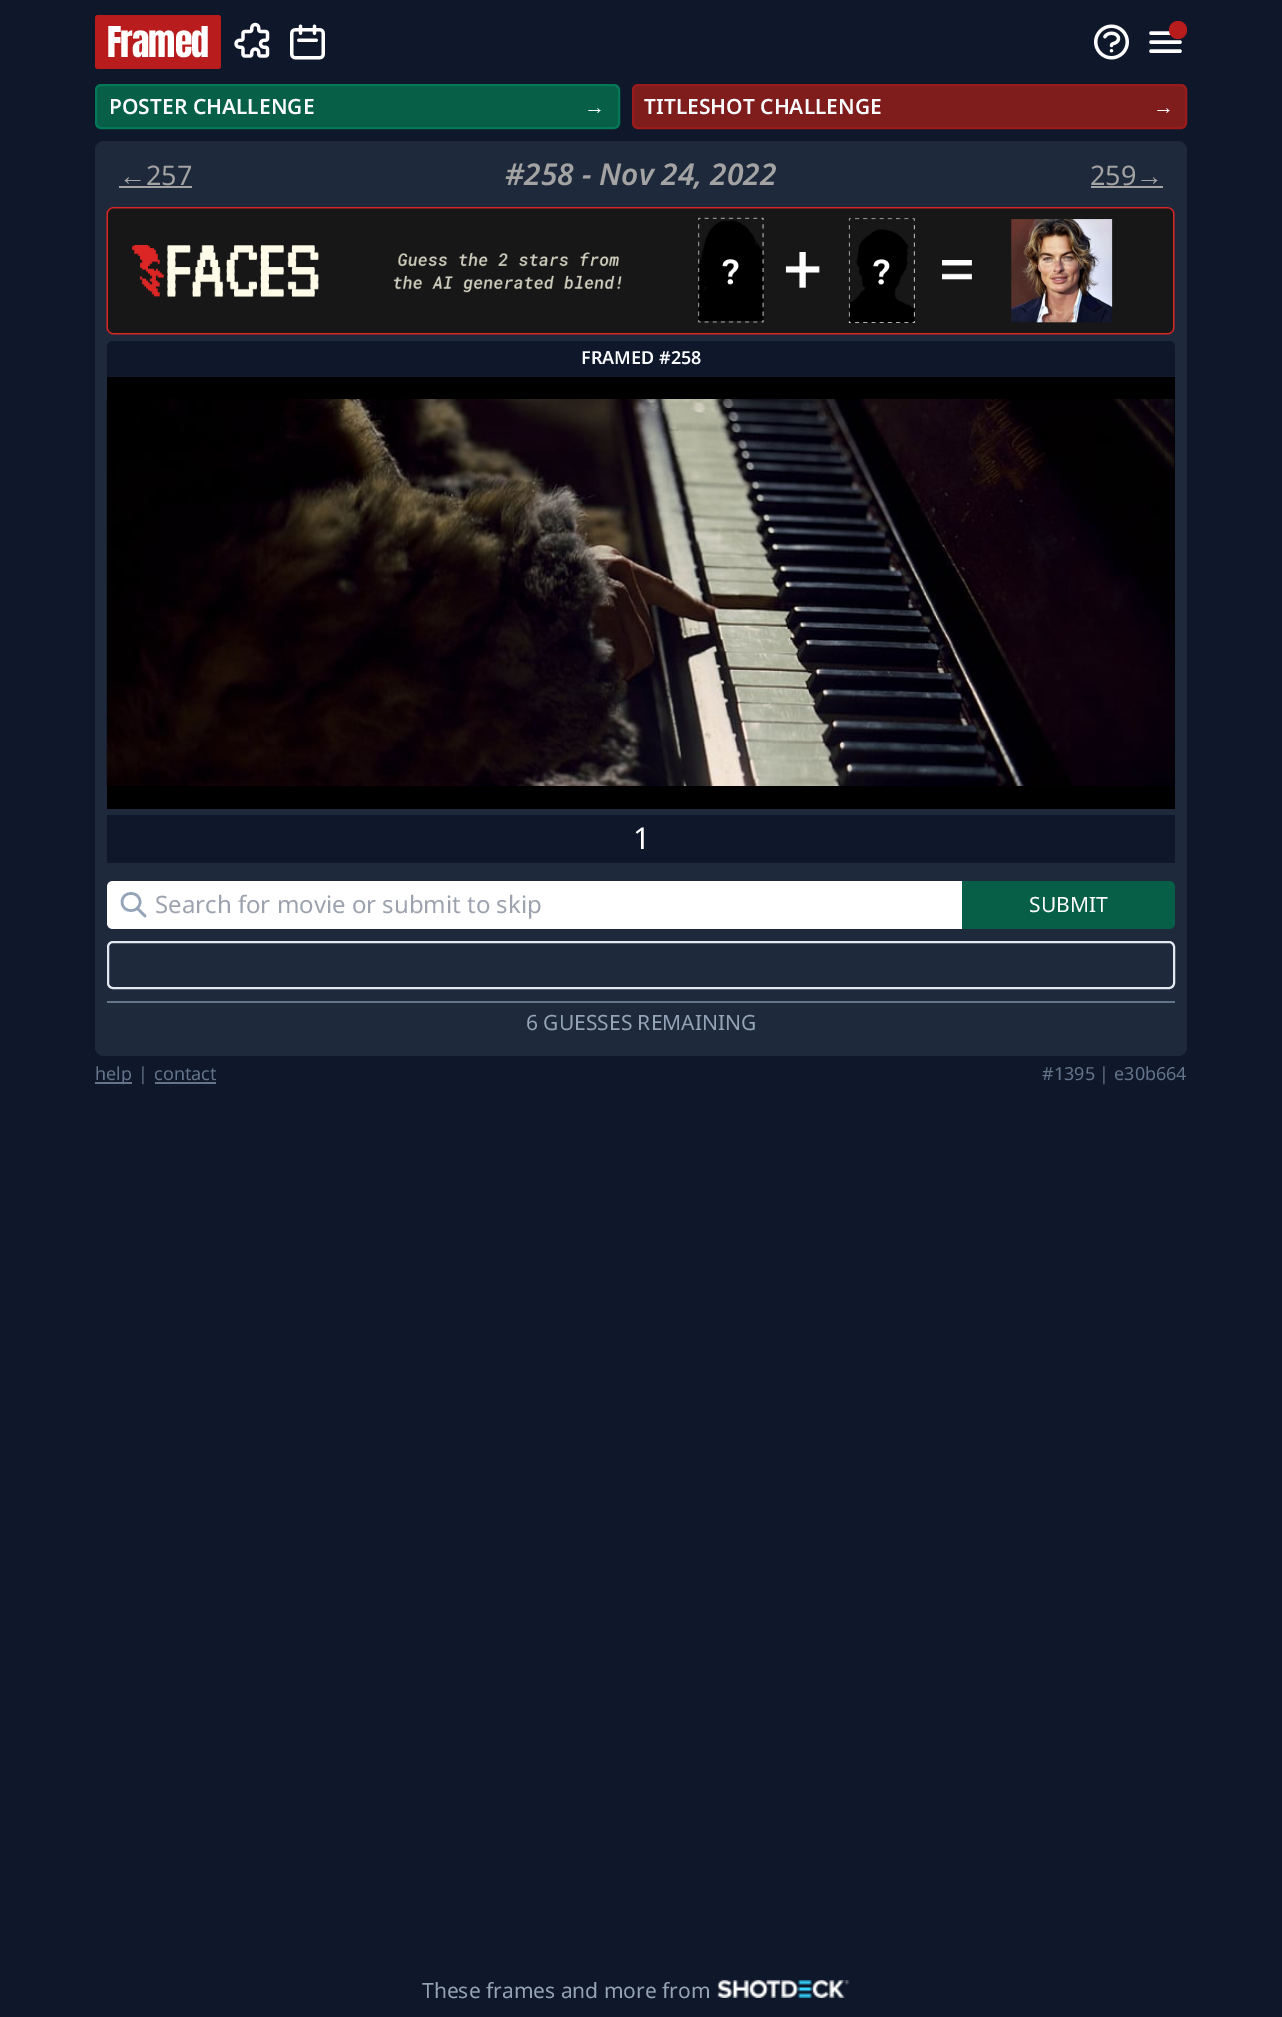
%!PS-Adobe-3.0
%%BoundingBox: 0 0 1282 2017
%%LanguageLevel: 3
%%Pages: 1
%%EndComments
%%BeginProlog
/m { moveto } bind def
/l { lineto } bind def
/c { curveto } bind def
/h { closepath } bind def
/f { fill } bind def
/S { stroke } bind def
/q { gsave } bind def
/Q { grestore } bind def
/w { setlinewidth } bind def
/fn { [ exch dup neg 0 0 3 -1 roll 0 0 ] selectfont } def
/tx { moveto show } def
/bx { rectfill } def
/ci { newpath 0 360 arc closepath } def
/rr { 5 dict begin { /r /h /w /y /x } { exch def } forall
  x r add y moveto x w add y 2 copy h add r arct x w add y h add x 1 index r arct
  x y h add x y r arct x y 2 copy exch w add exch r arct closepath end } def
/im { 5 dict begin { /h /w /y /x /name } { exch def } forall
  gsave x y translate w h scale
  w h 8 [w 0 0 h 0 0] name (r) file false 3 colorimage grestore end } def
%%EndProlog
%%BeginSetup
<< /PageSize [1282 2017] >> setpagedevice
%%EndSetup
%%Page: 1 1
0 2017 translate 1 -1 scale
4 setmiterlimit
0.059 0.09 0.165 setrgbcolor
0 0 1282 2017 bx
0.725 0.11 0.11 setrgbcolor
95 15 126 54 3 rr f
/Anton-Regular 36 fn
1 setgray
107 57 m -1 0 (Framed) ashow
(image0.raw) 234 22 36 36 im
(image1.raw) 290 24 35 36 im
(image2.raw) 1094 24 35 36 im
3.5 w
1 setlinecap
1 setlinejoin
1151 33 m 1180 33 l 1151 42 m 1180 42 l 1151 51 m 1180 51 l S
0.725 0.11 0.11 setrgbcolor
1178 30 9 ci f
0.024 0.373 0.275 setrgbcolor
96 85 523 43 5 rr q f Q
0.016 0.471 0.341 setrgbcolor
2 w
0 setlinecap
0 setlinejoin
S
/NotoSans-SemiBold 21 fn
0.973 0.98 0.988 setrgbcolor
(POSTER CHALLENGE) 109 114 tx
/LiberationSans-Bold 21 fn
(→) 584 114 tx
0.498 0.114 0.114 setrgbcolor
633 85 553 43 5 rr q f Q
0.6 0.106 0.106 setrgbcolor
S
/NotoSans-SemiBold 21 fn
0.973 0.98 0.988 setrgbcolor
(TITLESHOT CHALLENGE) 644 114 tx
/LiberationSans-Bold 21 fn
(→) 1153 114 tx
0.118 0.161 0.231 setrgbcolor
95 141 1092 915 9 rr f
/LiberationSans-Regular 27 fn
0.639 setgray
(←) 119 185 tx
119 186 73 2 bx
/NotoSans-Regular 27 fn
(257) 146 185 tx
/NotoSans-SemiBoldItalic 30 fn
(#258 - Nov 24, 2022) 505 185 tx
/NotoSans-Regular 27 fn
(259) 1090 185 tx
1091 186 72 2 bx
/LiberationSans-Regular 27 fn
(→) 1136 185 tx
(image3.raw) 106 207 1069 128 im
0.059 0.09 0.165 setrgbcolor
113 341 m 1169 341 l 1172.5 341 1175 343.5 1175 347 c 1175 377 l 107 377 l 107 347 l 107 343.5 109.5 341 113 341 c h f
/NotoSans-SemiBold 18 fn
0.973 0.98 0.988 setrgbcolor
(FRAMED #258) 581 364 tx
0 setgray
107 377 1068 432 bx
(image4.raw) 106 399 1069 387 im
0.059 0.09 0.165 setrgbcolor
107 815 1068 48 bx
/NotoSans-Regular 30 fn
1 setgray
(1) 633 849 tx
113 881 m 962 881 l 962 929 l 113 929 l 109.5 929 107 926.5 107 923 c 107 887 l 107 883.5 109.5 881 113 881 c h f
0.58 0.639 0.722 setrgbcolor
2.5 w
1 setlinecap
1 setlinejoin
145 916 m 137 908 l 140 902 m 140 913.5 122 913.5 122 902 c 122 890.5 140 890.5 140 902 c h S
/NotoSans-Regular 24 fn
0.612 0.639 0.686 setrgbcolor
(Search for movie or submit to skip) 155 913 tx
0.024 0.373 0.275 setrgbcolor
962 881 m 1169 881 l 1172.5 881 1175 883.5 1175 887 c 1175 923 l 1175 926.5 1172.5 929 1169 929 c 962 929 l h f
/NotoSans-Regular 21 fn
1 setgray
(SUBMIT) 1029 912 tx
0.886 0.91 0.941 setrgbcolor
2 w
0 setlinecap
0 setlinejoin
108 942 1066 46 5 rr S
0.392 0.455 0.545 setrgbcolor
107 1001 1068 2 bx
0.58 0.639 0.722 setrgbcolor
(6 GUESSES REMAINING) 526 1030 tx
0.392 0.455 0.545 setrgbcolor
95 1082 37 2 bx
/NotoSans-Regular 18 fn
(help) 95 1080 tx
(|) 138 1080 tx
(contact) 154 1080 tx
155 1082 61 2 bx
(#1395 | e30b664) 1042 1080 tx
/NotoSans-Regular 21 fn
0.58 0.639 0.722 setrgbcolor
(These frames and more from) 422 1998 tx
(image5.raw) 717 1980 133 18 im
showpage
%%EOF
